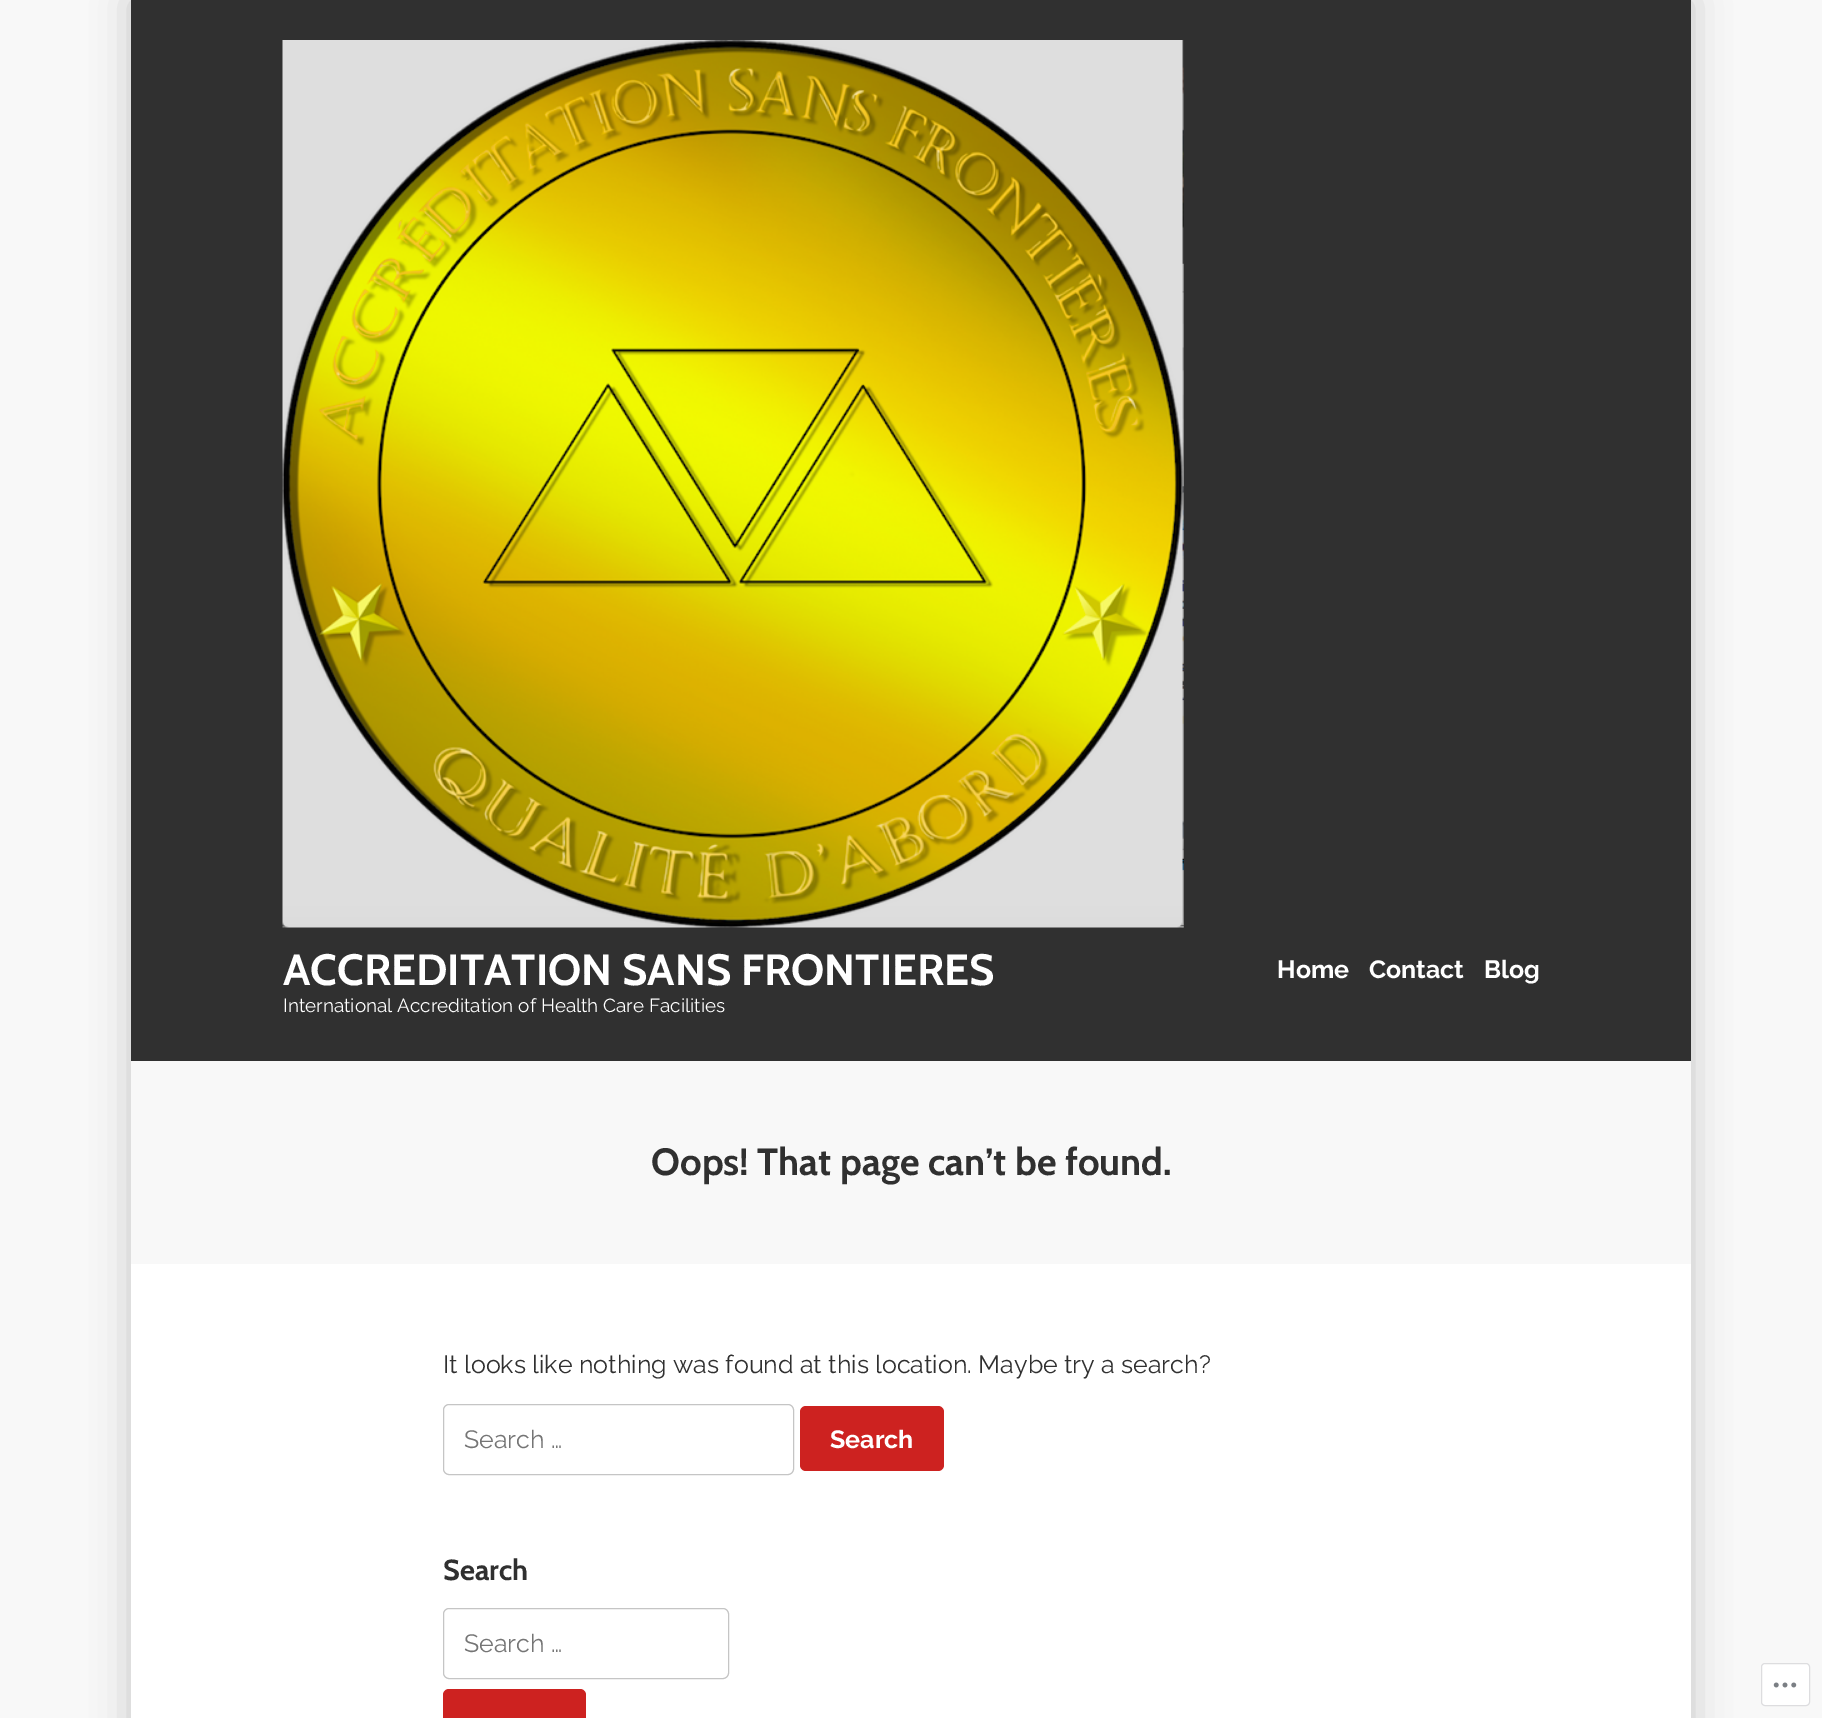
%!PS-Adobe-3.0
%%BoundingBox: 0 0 1822 1718
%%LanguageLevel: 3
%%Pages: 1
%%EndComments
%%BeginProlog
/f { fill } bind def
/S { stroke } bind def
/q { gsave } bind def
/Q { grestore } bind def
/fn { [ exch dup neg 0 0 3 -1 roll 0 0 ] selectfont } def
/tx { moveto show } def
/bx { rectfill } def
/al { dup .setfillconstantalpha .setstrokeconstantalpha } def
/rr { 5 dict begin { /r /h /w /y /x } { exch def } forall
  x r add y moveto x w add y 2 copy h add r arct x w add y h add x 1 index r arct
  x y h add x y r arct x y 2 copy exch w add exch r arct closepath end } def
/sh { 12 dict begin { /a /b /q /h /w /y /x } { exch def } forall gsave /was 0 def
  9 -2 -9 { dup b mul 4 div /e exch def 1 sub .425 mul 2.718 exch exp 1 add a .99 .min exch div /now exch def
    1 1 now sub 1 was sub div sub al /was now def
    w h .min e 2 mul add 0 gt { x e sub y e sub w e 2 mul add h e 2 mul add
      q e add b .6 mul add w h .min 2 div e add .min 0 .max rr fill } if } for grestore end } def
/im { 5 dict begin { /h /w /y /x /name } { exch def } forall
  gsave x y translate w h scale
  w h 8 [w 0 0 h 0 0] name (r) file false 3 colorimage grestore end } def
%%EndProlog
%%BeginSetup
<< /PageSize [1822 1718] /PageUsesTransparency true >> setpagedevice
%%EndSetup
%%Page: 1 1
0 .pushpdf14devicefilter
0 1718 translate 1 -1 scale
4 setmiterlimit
0.973 setgray
0 0 1822 1718 bx
0 setgray
131 0 1560 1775 0 19 0.2 sh
1 setgray
131 1264 1560 454 bx
0.188 setgray
131 0 1560 1061 bx
(image0.raw) 282 40 902 888 im
/Cabin-Bold 43.75 fn
1 setgray
(ACCREDITATION SANS FRONTIERES) 283 985 tx
/Raleway-Bold 25 fn
(Home) 1277 978 tx
(Contact) 1369 978 tx
(Blog) 1484 978 tx
/Raleway-Regular 18.9 fn
(International Accreditation of Health Care Facilities) 283 1012 tx
0.973 setgray
131 1061 1560 203 bx
/Cabin-Bold 38 fn
0.188 setgray
(Oops! That page can’t be found.) 651 1175 tx
/Raleway-Regular 25 fn
(It looks like nothing was found at this location. Maybe try a search?) 443 1373 tx
0.773 setgray
443.5 1404.5 350 70 5.5 rr S
0.459 setgray
(Search …) 464 1448 tx
0.804 0.133 0.125 setrgbcolor
800 1406 144 65 6 rr f
/Raleway-Bold 25 fn
1 setgray
(Search) 830 1448 tx
/Cabin-Bold 29 fn
0.188 setgray
(Search) 443 1580 tx
0.773 setgray
443.5 1608.5 285 70 5.5 rr S
/Raleway-Regular 25 fn
0.459 setgray
(Search …) 464 1652 tx
0.804 0.133 0.125 setrgbcolor
443 1689 143 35 6 rr f
1 setgray
1761.5 1663.5 48 42 3.5 rr q f Q
0.867 0.867 0.875 setrgbcolor
S
(image1.raw) 1773 1682 24 6 im
.poppdf14devicefilter showpage
%%EOF
